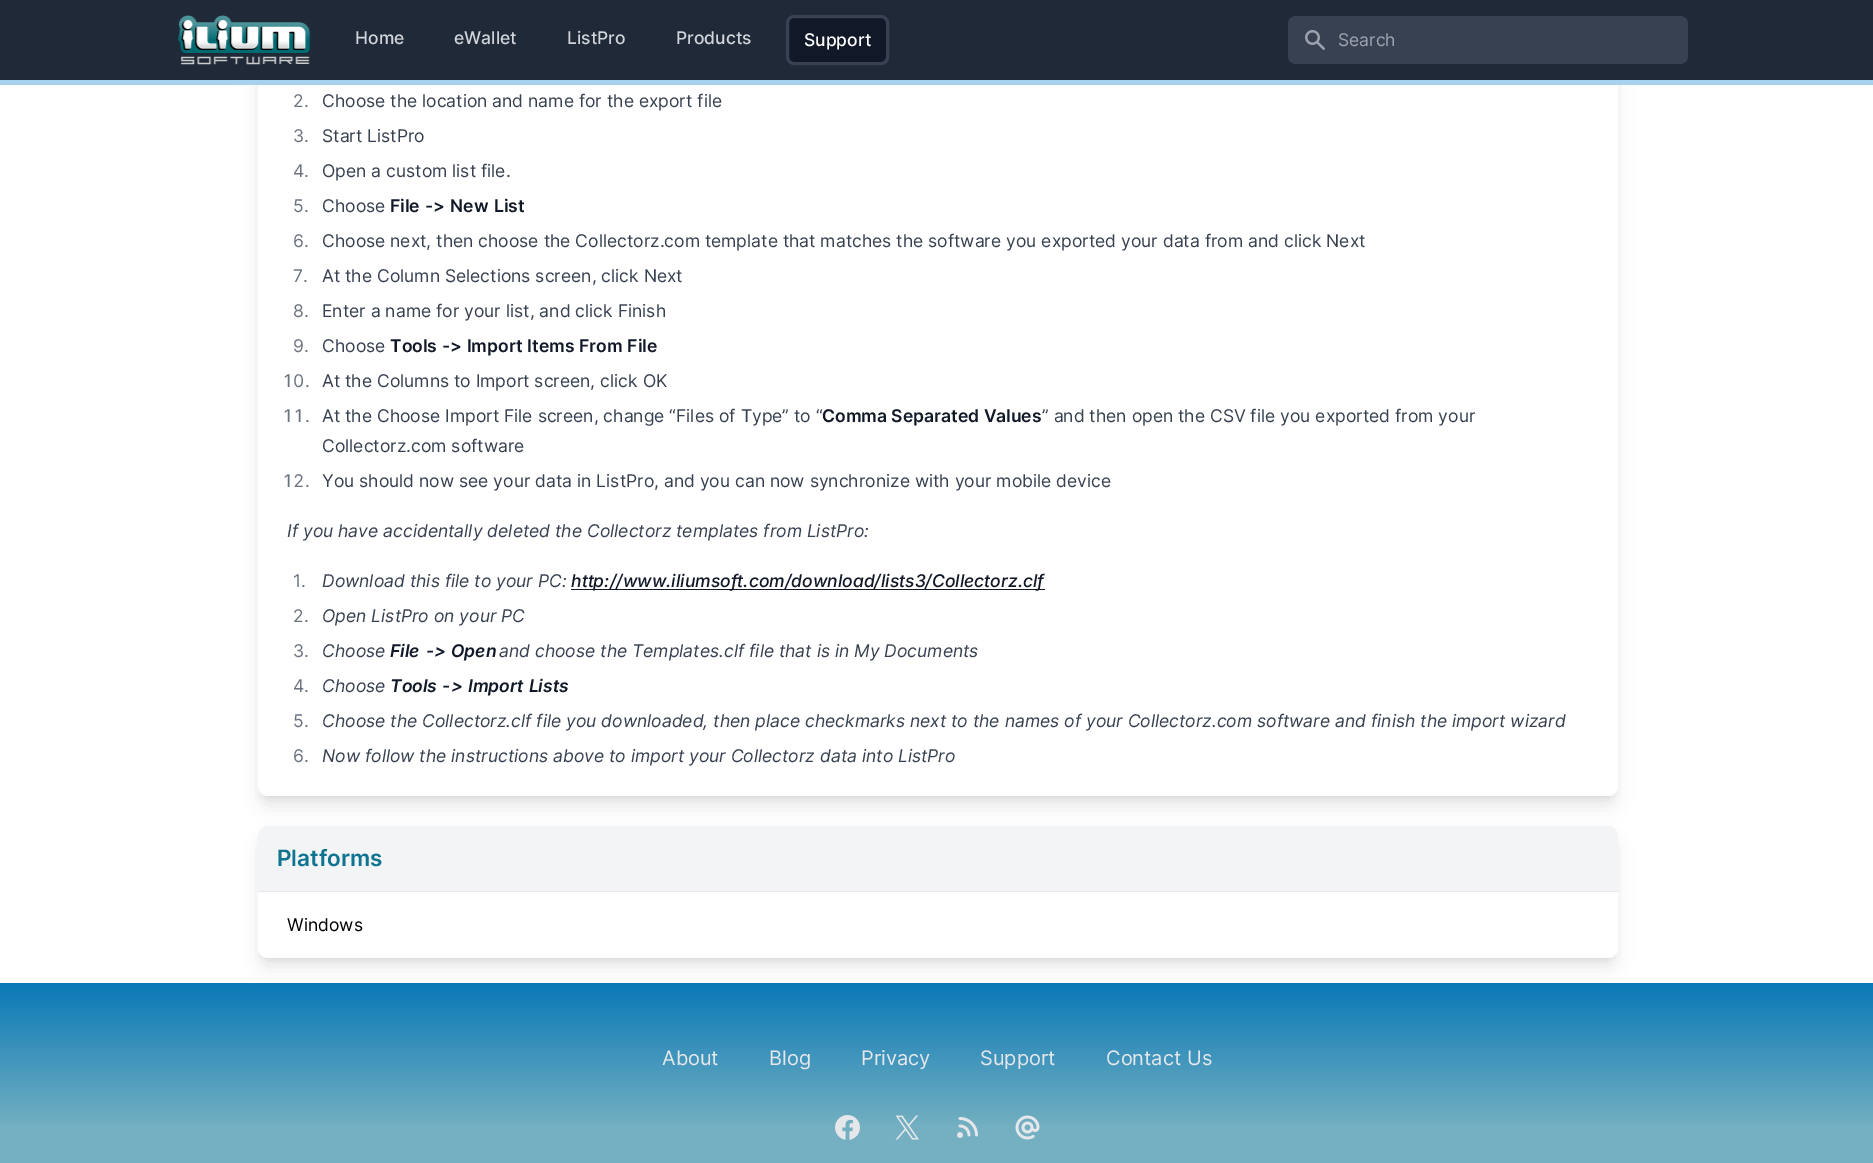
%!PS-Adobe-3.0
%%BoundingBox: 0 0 1873 1163
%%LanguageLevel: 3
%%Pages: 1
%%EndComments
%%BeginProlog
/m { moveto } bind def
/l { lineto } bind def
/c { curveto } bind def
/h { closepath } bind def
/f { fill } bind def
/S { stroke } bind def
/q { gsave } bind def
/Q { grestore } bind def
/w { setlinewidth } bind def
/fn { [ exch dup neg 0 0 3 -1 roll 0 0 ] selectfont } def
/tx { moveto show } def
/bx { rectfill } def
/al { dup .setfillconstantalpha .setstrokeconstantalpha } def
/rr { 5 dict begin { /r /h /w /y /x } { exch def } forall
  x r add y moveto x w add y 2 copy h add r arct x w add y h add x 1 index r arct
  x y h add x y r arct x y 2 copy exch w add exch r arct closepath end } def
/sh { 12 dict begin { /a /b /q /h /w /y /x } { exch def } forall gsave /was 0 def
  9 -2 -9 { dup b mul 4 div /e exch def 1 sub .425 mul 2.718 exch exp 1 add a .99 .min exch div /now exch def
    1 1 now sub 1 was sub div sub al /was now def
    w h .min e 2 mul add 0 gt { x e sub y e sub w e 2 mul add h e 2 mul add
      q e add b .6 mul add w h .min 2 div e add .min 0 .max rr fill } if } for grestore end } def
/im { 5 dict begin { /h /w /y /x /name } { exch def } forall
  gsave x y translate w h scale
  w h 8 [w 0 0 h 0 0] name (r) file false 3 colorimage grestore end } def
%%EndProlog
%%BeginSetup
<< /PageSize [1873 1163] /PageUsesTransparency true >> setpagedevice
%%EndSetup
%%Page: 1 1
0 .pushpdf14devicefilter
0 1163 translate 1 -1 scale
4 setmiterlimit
1 setgray
0 0 1873 1163 bx
0 setgray
263 -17 1350 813 5 4 0.1 sh
261 -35 1353 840 6 9.5 0.1 sh
1 setgray
258 -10 1360 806 10 rr f
0.122 0.161 0.216 setrgbcolor
0 0 1873 80 bx
(image0.raw) 178 15 133 50 im
/Inter-Medium 17.5 fn
0.82 0.835 0.859 setrgbcolor
(Home) 355 44 tx
(eWallet) 454 44 tx
(ListPro) 567 44 tx
(Products) 676 44 tx
0.067 0.094 0.153 setrgbcolor
787.5 16.5 100 47 6.5 rr q f Q
0.216 0.255 0.318 setrgbcolor
3 w
S
1 setgray
(Support) 804 46 tx
0.216 0.255 0.318 setrgbcolor
1288 16 400 48 8 rr f
(image1.raw) 1305 30 20 20 im
/Inter-Regular 17.5 fn
0.612 0.639 0.686 setrgbcolor
(Search) 1338 46 tx
0.651 0.824 0.937 setrgbcolor
0 80 1873 5 bx
0.42 0.447 0.502 setrgbcolor
(2.) 293 107 tx
0.216 0.255 0.318 setrgbcolor
(Choose the location and name for the export file) 322 107 tx
0.42 0.447 0.502 setrgbcolor
(3.) 293 142 tx
0.216 0.255 0.318 setrgbcolor
(Start ListPro) 322 142 tx
0.42 0.447 0.502 setrgbcolor
(4.) 293 177 tx
0.216 0.255 0.318 setrgbcolor
(Open a custom list file.) 322 177 tx
0.42 0.447 0.502 setrgbcolor
(5.) 293 212 tx
0.216 0.255 0.318 setrgbcolor
(Choose) 322 212 tx
/Inter-SemiBold 17.5 fn
0.067 0.094 0.153 setrgbcolor
390 212 m 1 0 32 (File -> New List) widthshow
/Inter-Regular 17.5 fn
0.42 0.447 0.502 setrgbcolor
(6.) 293 247 tx
0.216 0.255 0.318 setrgbcolor
(Choose next, then choose the Collectorz.com template that matches the software you exported your data from and click Next) 322 247 tx
0.42 0.447 0.502 setrgbcolor
(7.) 293 282 tx
0.216 0.255 0.318 setrgbcolor
(At the Column Selections screen, click Next) 322 282 tx
0.42 0.447 0.502 setrgbcolor
(8.) 293 317 tx
0.216 0.255 0.318 setrgbcolor
(Enter a name for your list, and click Finish) 322 317 tx
0.42 0.447 0.502 setrgbcolor
(9.) 293 352 tx
0.216 0.255 0.318 setrgbcolor
(Choose) 322 352 tx
/Inter-SemiBold 17.5 fn
0.067 0.094 0.153 setrgbcolor
390 352 m 0.5 0 32 (Tools -> Import Items From File) widthshow
/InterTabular-Regular 17.5 fn
0.42 0.447 0.502 setrgbcolor
(10.) 282 387 tx
/Inter-Regular 17.5 fn
0.216 0.255 0.318 setrgbcolor
(At the Columns to Import screen, click OK) 322 387 tx
/InterTabular-Regular 17.5 fn
0.42 0.447 0.502 setrgbcolor
(11.) 282 422 tx
/Inter-Regular 17.5 fn
0.216 0.255 0.318 setrgbcolor
(At the Choose Import File screen, change “Files of Type” to “) 322 422 tx
/Inter-SemiBold 17.5 fn
0.067 0.094 0.153 setrgbcolor
(Comma Separated Values) 822 422 tx
/Inter-Regular 17.5 fn
0.216 0.255 0.318 setrgbcolor
(” and then open the CSV file you exported from your) 1042 422 tx
(Collectorz.com software) 322 452 tx
/InterTabular-Regular 17.5 fn
0.42 0.447 0.502 setrgbcolor
(12.) 282 487 tx
/Inter-Regular 17.5 fn
0.216 0.255 0.318 setrgbcolor
(You should now see your data in ListPro, and you can now synchronize with your mobile device) 322 487 tx
/Inter-Italic 17.5 fn
(If you have accidentally deleted the Collectorz templates from ListPro:) 287 537 tx
/Inter-Regular 17.5 fn
0.42 0.447 0.502 setrgbcolor
(1.) 293 587 tx
/Inter-Italic 17.5 fn
0.216 0.255 0.318 setrgbcolor
(Download this file to your PC:) 322 587 tx
0.067 0.094 0.153 setrgbcolor
571 589 474 1 bx
/Inter-MediumItalic 17.5 fn
(http://www.iliumsoft.com/download/lists3/Collectorz.clf) 571 587 tx
/Inter-Regular 17.5 fn
0.42 0.447 0.502 setrgbcolor
(2.) 293 622 tx
/Inter-Italic 17.5 fn
0.216 0.255 0.318 setrgbcolor
(Open ListPro on your PC) 322 622 tx
/Inter-Regular 17.5 fn
0.42 0.447 0.502 setrgbcolor
(3.) 293 657 tx
/Inter-Italic 17.5 fn
0.216 0.255 0.318 setrgbcolor
(Choose) 322 657 tx
/Inter-SemiBoldItalic 17.5 fn
0.067 0.094 0.153 setrgbcolor
390 657 m 2 0 32 (File ->) widthshow
451 657 m 2 0 32 (Open) widthshow
/Inter-Italic 17.5 fn
0.216 0.255 0.318 setrgbcolor
(and choose the Templates.clf file that is in My Documents) 499 657 tx
/Inter-Regular 17.5 fn
0.42 0.447 0.502 setrgbcolor
(4.) 293 692 tx
/Inter-Italic 17.5 fn
0.216 0.255 0.318 setrgbcolor
(Choose) 322 692 tx
/Inter-SemiBoldItalic 17.5 fn
0.067 0.094 0.153 setrgbcolor
390 692 m 1 0 32 (Tools -> Import Lists) widthshow
/Inter-Regular 17.5 fn
0.42 0.447 0.502 setrgbcolor
(5.) 293 727 tx
/Inter-Italic 17.5 fn
0.216 0.255 0.318 setrgbcolor
(Choose the Collectorz.clf file you downloaded, then place checkmarks next to the names of your Collectorz.com software and finish the import wizard) 322 727 tx
/Inter-Regular 17.5 fn
0.42 0.447 0.502 setrgbcolor
(6.) 293 762 tx
/Inter-Italic 17.5 fn
0.216 0.255 0.318 setrgbcolor
(Now follow the instructions above to import your Collectorz data into ListPro) 322 762 tx
0 setgray
263 836 1350 122 5 4 0.1 sh
q 0 983 m 1873 983 l 1873 1163 l 0 1163 l h clip newpath
<< /ShadingType 2 /ColorSpace /DeviceRGB /Coords [937 982 937 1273] /Extend [true true] /Function << /FunctionType 3 /Domain [0 1] /Functions [<< /FunctionType 2 /Domain [0 1] /C0 [0.035 0.475 0.718] /C1 [0.455 0.69 0.757] /N 1 >> << /FunctionType 2 /Domain [0 1] /C0 [0.455 0.69 0.757] /C1 [0.455 0.69 0.757] /N 1 >>] /Bounds [0.5] /Encode [0 1 0 1] >> >> shfill Q
261 843 1353 123 6 9.5 0.1 sh
1 setgray
258 826 1360 132 10 rr f
0.953 0.957 0.965 setrgbcolor
268 826 m 1608 826 l 1613.5 826 1618 830.5 1618 836 c 1618 891 l 258 891 l 258 836 l 258 830.5 262.5 826 268 826 c h f
0.898 0.906 0.922 setrgbcolor
258 891 1360 1 bx
/Inter-SemiBold 22.5 fn
0.055 0.455 0.565 setrgbcolor
(Platforms) 277 866 tx
/Inter-Regular 17.5 fn
0 setgray
(Windows) 287 931 tx
/Inter-Regular 20 fn
0.898 0.906 0.922 setrgbcolor
(About) 662 1065 tx
(Blog) 769 1065 tx
(Privacy) 861 1065 tx
(Support) 980 1065 tx
(Contact Us) 1106 1065 tx
(image2.raw) 835 1115 25 25 im
(image3.raw) 895 1115 24 25 im
(image4.raw) 957 1117 21 21 im
(image5.raw) 1015 1115 25 25 im
.poppdf14devicefilter showpage
%%EOF
